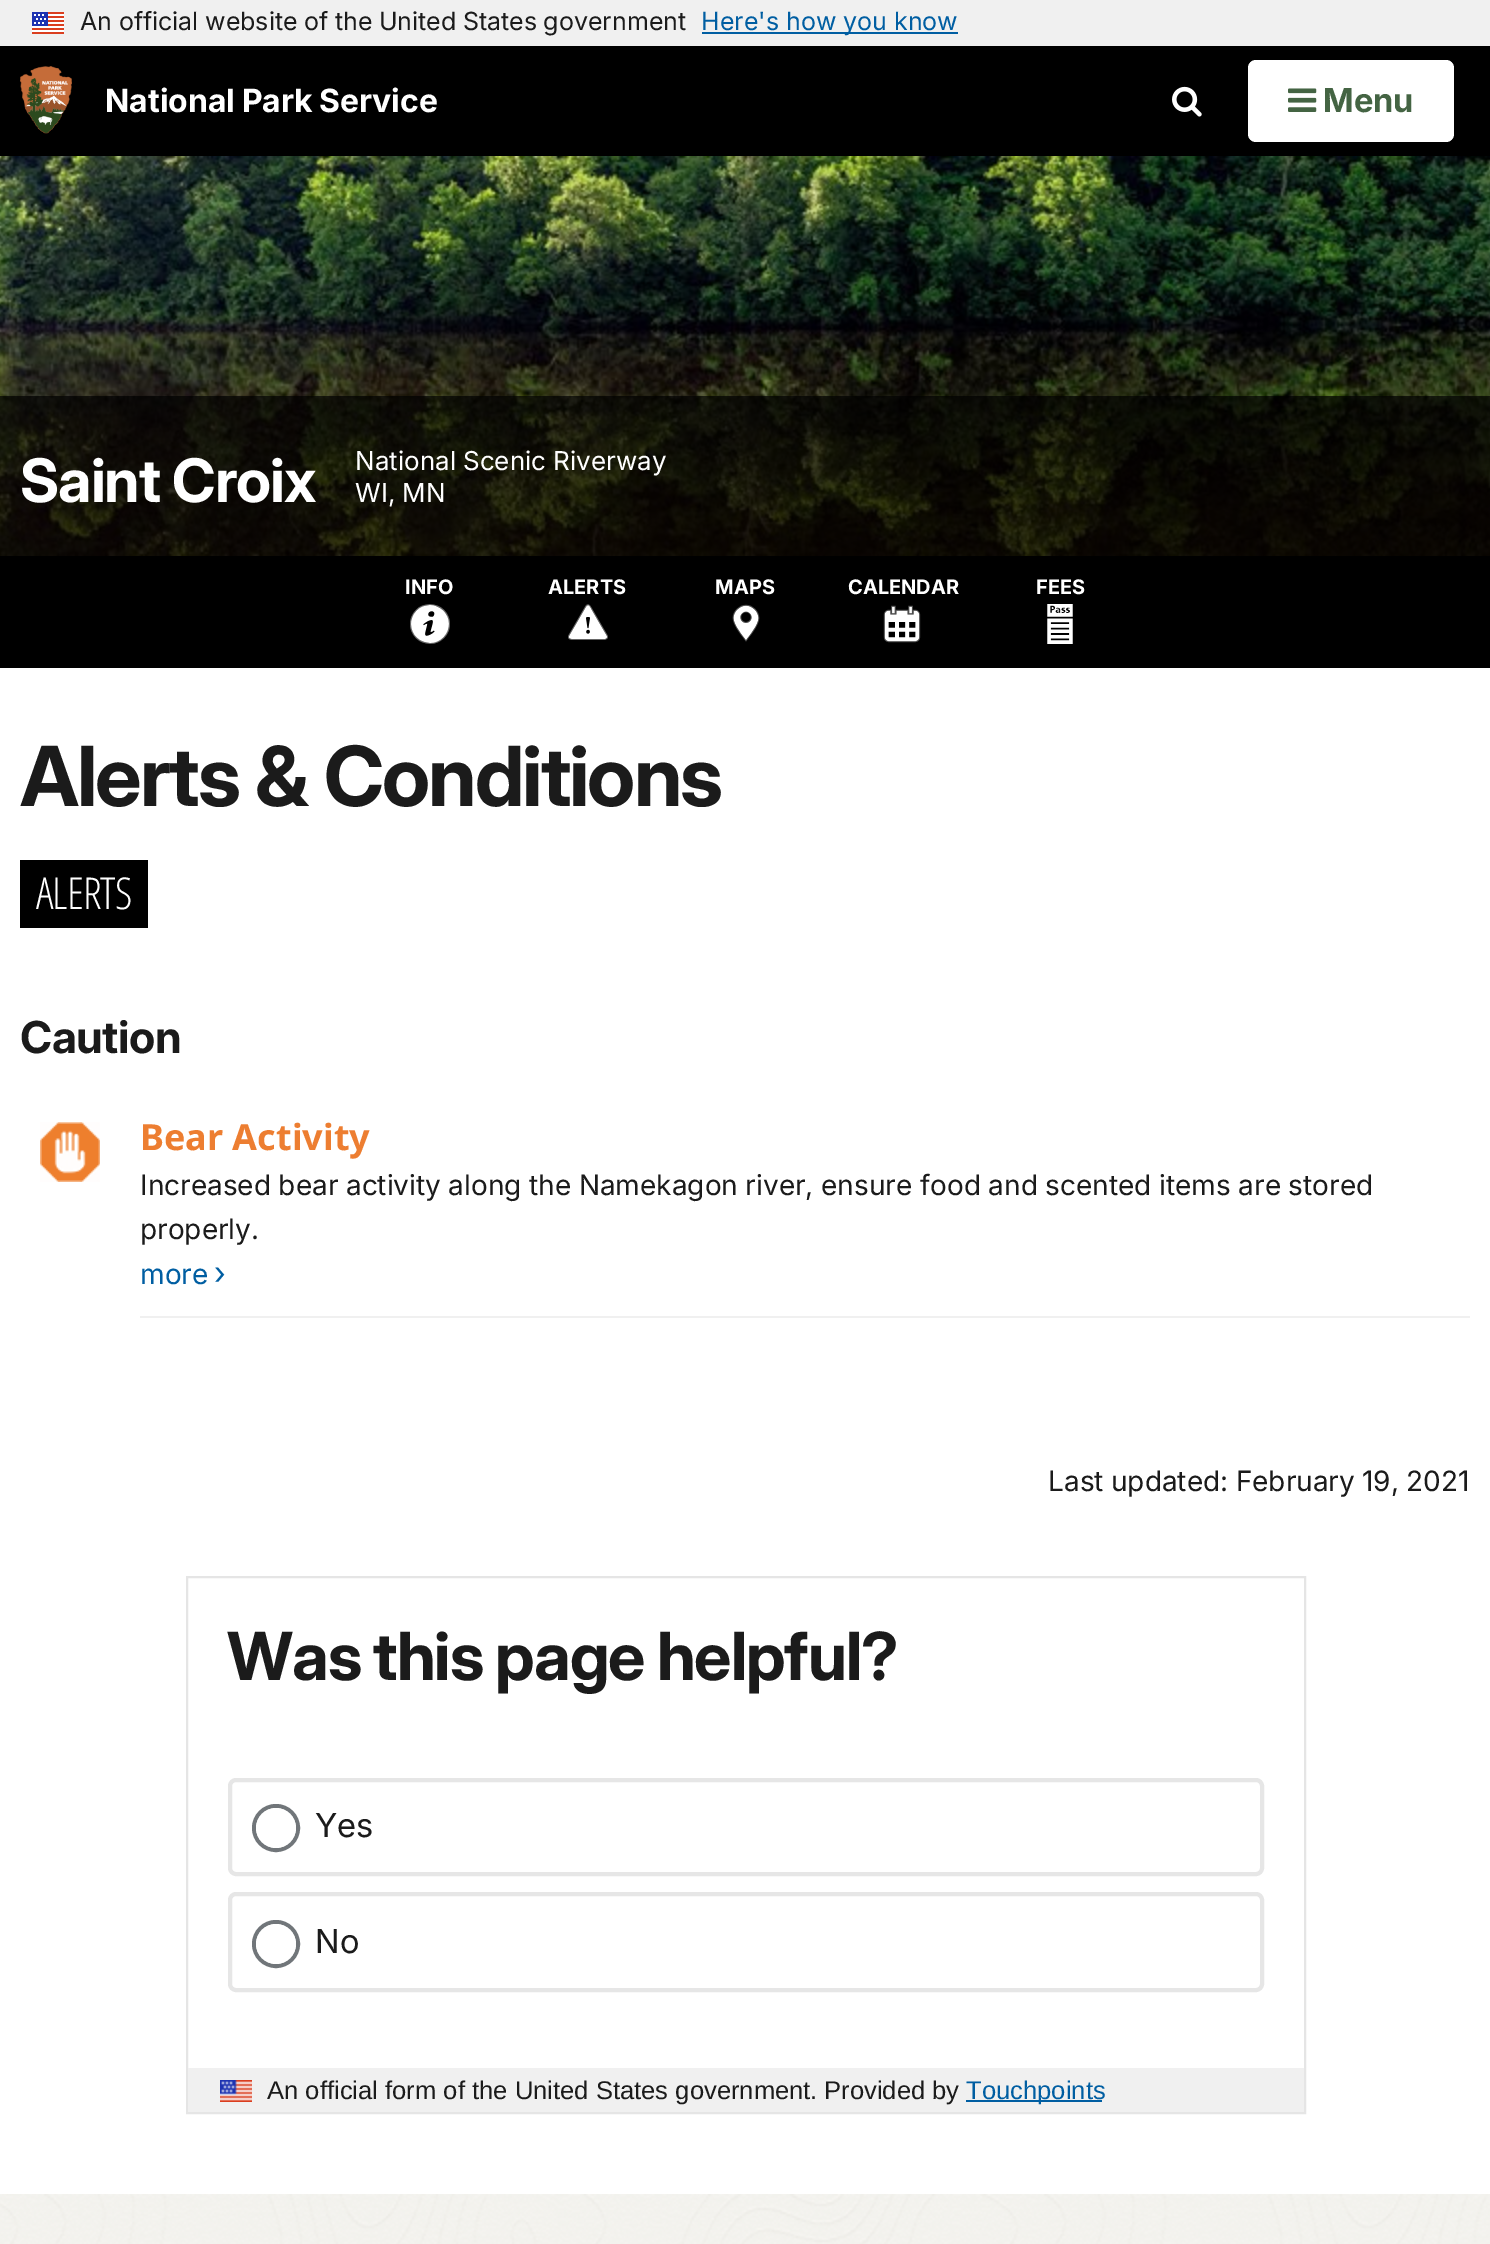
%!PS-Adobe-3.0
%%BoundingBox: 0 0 1490 2244
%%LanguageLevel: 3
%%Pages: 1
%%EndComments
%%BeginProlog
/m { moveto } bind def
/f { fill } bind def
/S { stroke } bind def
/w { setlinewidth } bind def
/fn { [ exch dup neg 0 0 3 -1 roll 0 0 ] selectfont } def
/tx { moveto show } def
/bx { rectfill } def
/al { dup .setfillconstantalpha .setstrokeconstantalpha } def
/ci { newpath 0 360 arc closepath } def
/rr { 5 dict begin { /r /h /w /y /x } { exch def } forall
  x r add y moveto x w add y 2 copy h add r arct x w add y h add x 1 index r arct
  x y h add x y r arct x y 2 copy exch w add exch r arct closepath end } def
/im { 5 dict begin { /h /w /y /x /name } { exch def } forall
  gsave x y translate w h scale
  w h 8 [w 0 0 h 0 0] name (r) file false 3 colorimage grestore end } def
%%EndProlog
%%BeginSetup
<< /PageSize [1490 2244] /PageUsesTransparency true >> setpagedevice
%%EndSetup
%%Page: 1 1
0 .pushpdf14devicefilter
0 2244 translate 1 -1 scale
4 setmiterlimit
1 setgray
0 0 1490 2244 bx
0.941 setgray
0 0 1490 46 bx
(image0.raw) 32 12 32 22 im
/Inter-Regular 25 fn
0.106 setgray
80 30 m -0.5 0 32 (An official website of the United States government) widthshow
0 0.369 0.635 setrgbcolor
702 32 256 2 bx
(Here's how you know) 701 30 tx
0 setgray
0 46 1490 110 bx
(image1.raw) 20 66 52 68 im
/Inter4-Bold 32 fn
1 setgray
105 112 m -1 0 32 (National Park Service) widthshow
(image2.raw) 1172 86 30 31 im
1248 60 206 82 8 rr f
(image3.raw) 1288 88 29 24 im
/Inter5-Bold 33 fn
0.267 0.392 0.263 setrgbcolor
(Menu) 1323 112 tx
(image4.raw) 0 156 1490 400 im
0.7 al
0 setgray
0 396 1490 160 bx
/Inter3-Bold 60 fn
1 al
1 setgray
20 502 m -1 0 (Saint Croix) ashow
/Inter-Regular 26 fn
355 470 m -0.3 0 32 (National Scenic Riverway) widthshow
(WI, MN) 355 502 tx
0 setgray
0 556 1490 112 bx
/Inter4-Bold 20 fn
1 setgray
(INFO) 405 594 tx
(image5.raw) 410 604 40 40 im
(ALERTS) 548 594 tx
(image6.raw) 568 604 40 36 im
(MAPS) 715 594 tx
(image7.raw) 732 604 28 38 im
(CALENDAR) 848 594 tx
(image8.raw) 883 605 38 38 im
(FEES) 1036 594 tx
(image9.raw) 1047 604 26 40 im
/Inter-Bold 82.9 fn
0.106 setgray
20 806 m 1 0 32 -2 0 (Alerts & Conditions) awidthshow
0 setgray
20 860 128 68 bx
/OpenSansCondensed-Light 44 fn
1 setgray
36 909 m -1 0 (ALERTS) ashow
/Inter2-Bold 44 fn
0.106 setgray
20 1053 m -0.5 0 (Caution) ashow
(image10.raw) 40 1122 60 60 im
0.941 setgray
140 1316 1330 2 bx
/NotoSans-Bold 36 fn
0.929 0.494 0.192 setrgbcolor
(Bear Activity) 140 1150 tx
/Inter-Regular 28 fn
0.106 setgray
140 1195 m -0.3 0 32 (Increased bear activity along the Namekagon river, ensure food and scented items are stored) widthshow
(properly.) 140 1239 tx
0 0.369 0.635 setrgbcolor
(more) 140 1284 tx
/Inter2-Regular 31 fn
(›) 214 1284 tx
/Inter-Regular 28 fn
0.106 setgray
1048 1491 m -0.5 0 32 (Last updated: February 19, 2021) widthshow
0.898 setgray
2 w
187 1577 1118 536 rectstroke
/Inter-Bold 66.25 fn
0.106 setgray
227 1680 m -1 0 32 -1 0 (Was this page helpful?) awidthshow
0.902 setgray
4 w
230 1780 1032 94 6 rr S
0.443 0.463 0.478 setrgbcolor
276 1828 22 ci S
1 setgray
276 1828 20 ci f
/Inter3-Regular 33 fn
0.106 setgray
(Yes) 315 1837 tx
0.902 setgray
230 1894 1032 96 6 rr S
0.443 0.463 0.478 setrgbcolor
276 1944 22 ci S
1 setgray
276 1944 20 ci f
0.106 setgray
(No) 315 1953 tx
0.941 setgray
188 2068 1116 44 bx
(image11.raw) 220 2080 32 22 im
/LiberationSans-Regular 25.6 fn
0.106 setgray
(An official form of the United States government.) 267 2099 tx
(Provided by) 824 2099 tx
0 0.369 0.635 setrgbcolor
966 2100 136 2 bx
(Touchpoints) 966 2099 tx
(image12.raw) 0 2194 1490 50 im
.poppdf14devicefilter showpage
%%EOF
